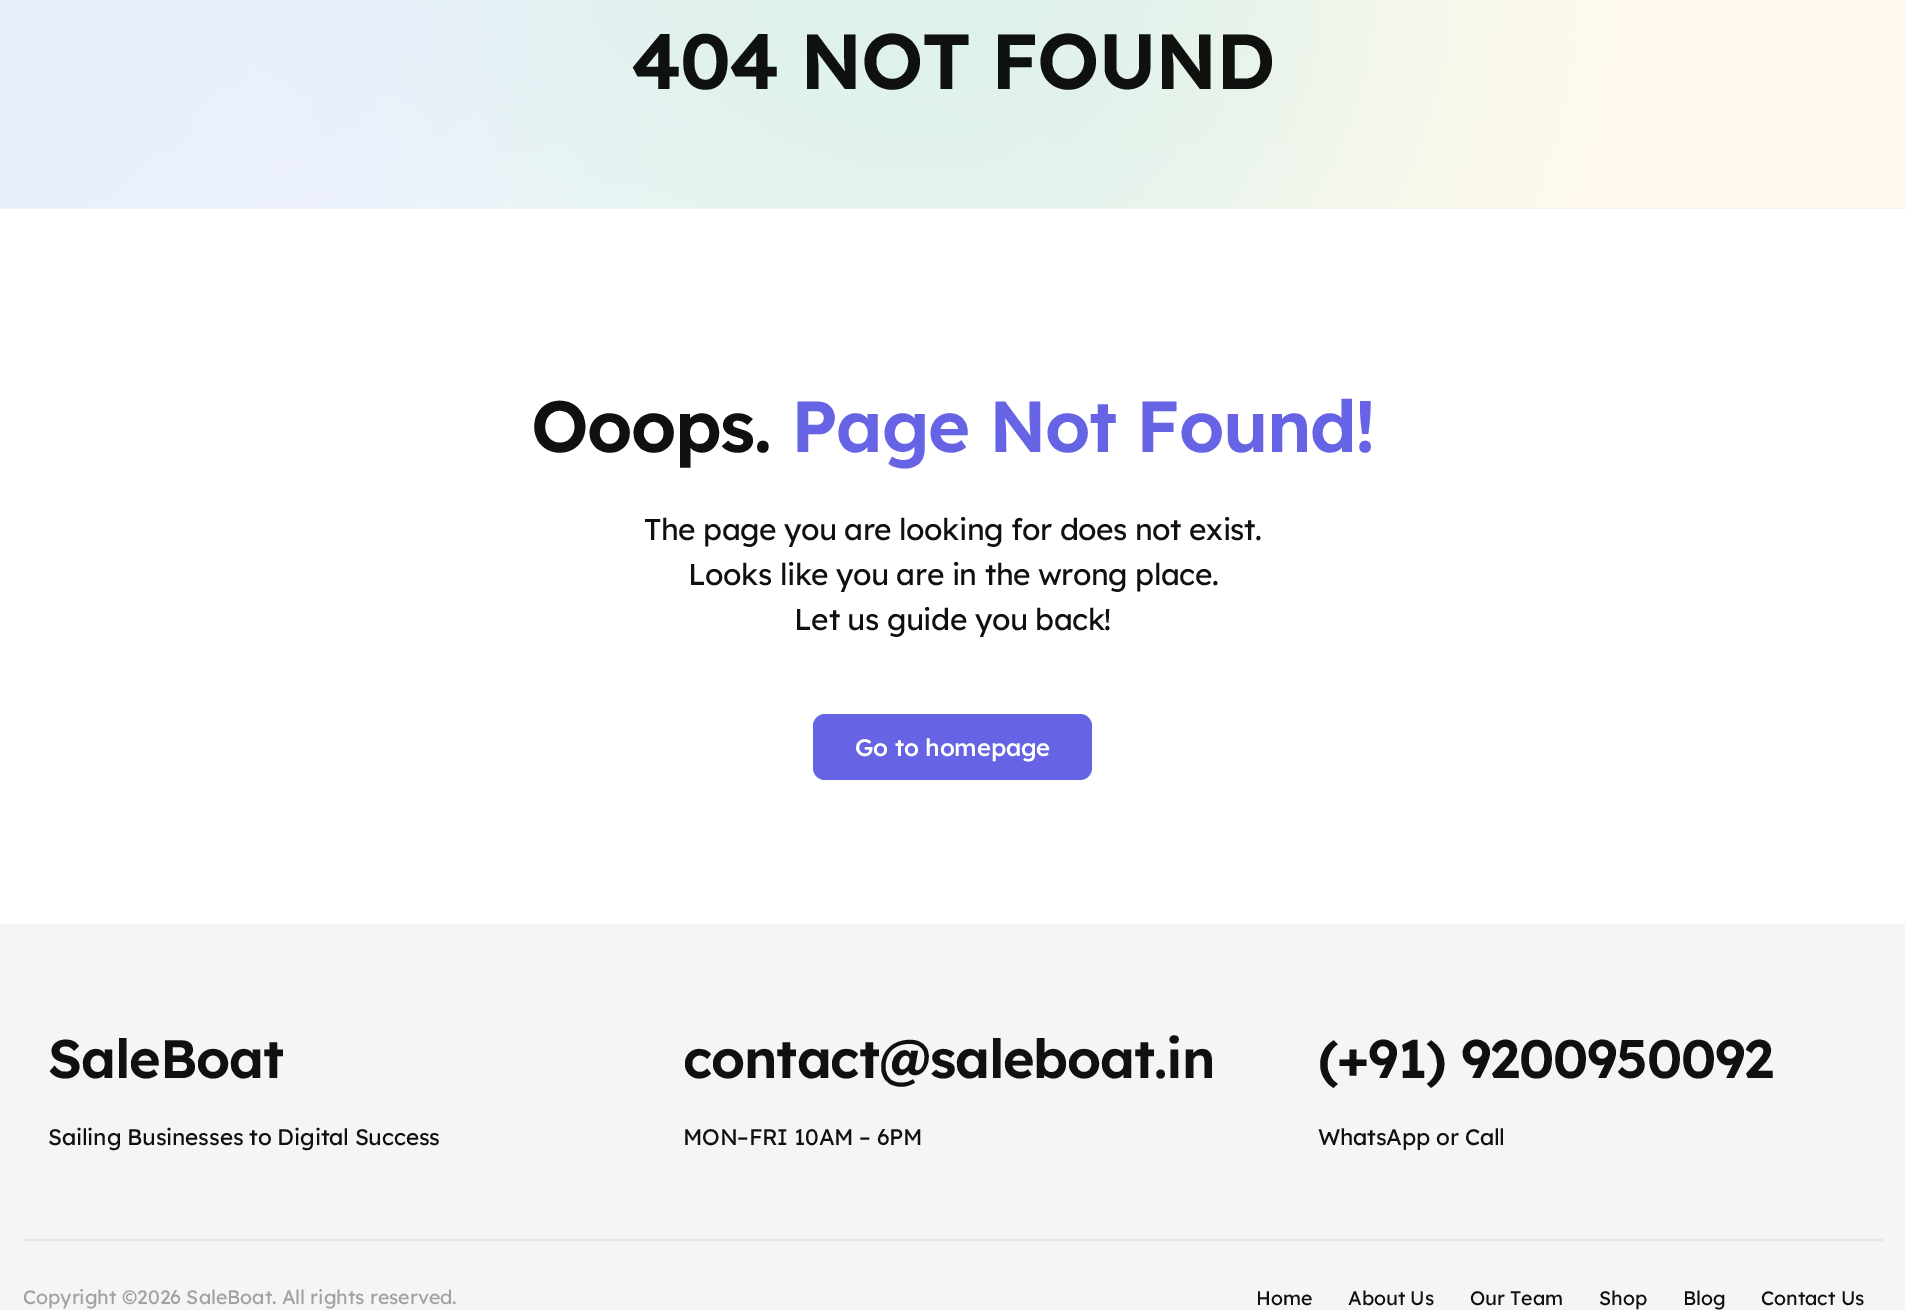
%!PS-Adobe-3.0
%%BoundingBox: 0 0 1905 1310
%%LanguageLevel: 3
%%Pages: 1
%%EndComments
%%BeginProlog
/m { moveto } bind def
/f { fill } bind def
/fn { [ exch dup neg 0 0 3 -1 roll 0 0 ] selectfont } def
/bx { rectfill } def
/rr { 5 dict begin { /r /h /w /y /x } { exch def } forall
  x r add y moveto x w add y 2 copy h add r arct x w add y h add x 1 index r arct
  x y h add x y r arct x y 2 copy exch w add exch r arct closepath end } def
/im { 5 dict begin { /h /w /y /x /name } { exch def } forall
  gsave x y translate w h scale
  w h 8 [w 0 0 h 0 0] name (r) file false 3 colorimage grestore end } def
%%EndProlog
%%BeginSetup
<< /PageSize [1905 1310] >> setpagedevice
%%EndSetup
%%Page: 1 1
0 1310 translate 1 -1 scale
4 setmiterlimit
1 setgray
0 0 1905 1310 bx
0.961 0.957 0.996 setrgbcolor
0 208 1905 1 bx
(image0.raw) 0 0 1905 208 im
/LexendDeca-SemiBold 78 fn
0.059 0.067 0.059 setrgbcolor
631 89 m -1.75 0 (404 NOT FOUND) ashow
/LexendDeca-SemiBold 72 fn
531 452 m -1.6 0 (Ooops.) ashow
0.4 0.392 0.894 setrgbcolor
791 452 m -1.6 0 (Page Not Found!) ashow
/LexendDeca-Regular 30 fn
0.059 0.067 0.059 setrgbcolor
644 540 m -0.5 0 (The page you are looking for does not exist.) ashow
688 585 m -0.5 0 (Looks like you are in the wrong place.) ashow
794 630 m -0.5 0 (Let us guide you back!) ashow
0.4 0.392 0.894 setrgbcolor
813 714 279 66 12 rr f
/LexendDeca-Medium 24 fn
1 setgray
855 756 m -0.25 0 (Go to homepage) ashow
0.961 0.961 0.965 setrgbcolor
0 924 1905 386 bx
0.894 0.894 0.898 setrgbcolor
23 1239 1860 2 bx
/LexendDeca-SemiBold 54 fn
0.059 0.067 0.059 setrgbcolor
48 1078 m -1.2 0 (SaleBoat) ashow
/LexendDeca-Regular 22.5 fn
48 1145 m -0.2 0 (Sailing Businesses to Digital Success) ashow
/LexendDeca-SemiBold 54 fn
683 1078 m -1.2 0 (contact@saleboat.in) ashow
/LexendDeca-Regular 22.5 fn
683 1145 m -0.2 0 (MON–FRI 10AM – 6PM) ashow
/LexendDeca-SemiBold 54 fn
1318 1078 m -1.2 0 (\(+91\) 9200950092) ashow
/LexendDeca-Regular 22.5 fn
1318 1145 m -0.2 0 (WhatsApp or Call) ashow
/LexendDeca-Regular 19.5 fn
0.627 0.631 0.635 setrgbcolor
23 1304 m -0.05 0 (Copyright ©2026 SaleBoat. All rights reserved.) ashow
0.059 0.067 0.059 setrgbcolor
1256 1305 m -0.05 0 (Home) ashow
1348 1305 m -0.05 0 (About Us) ashow
1470 1305 m -0.05 0 (Our Team) ashow
1599 1305 m -0.05 0 (Shop) ashow
1683 1305 m -0.05 0 (Blog) ashow
1761 1305 m -0.05 0 (Contact Us) ashow
showpage
%%EOF
